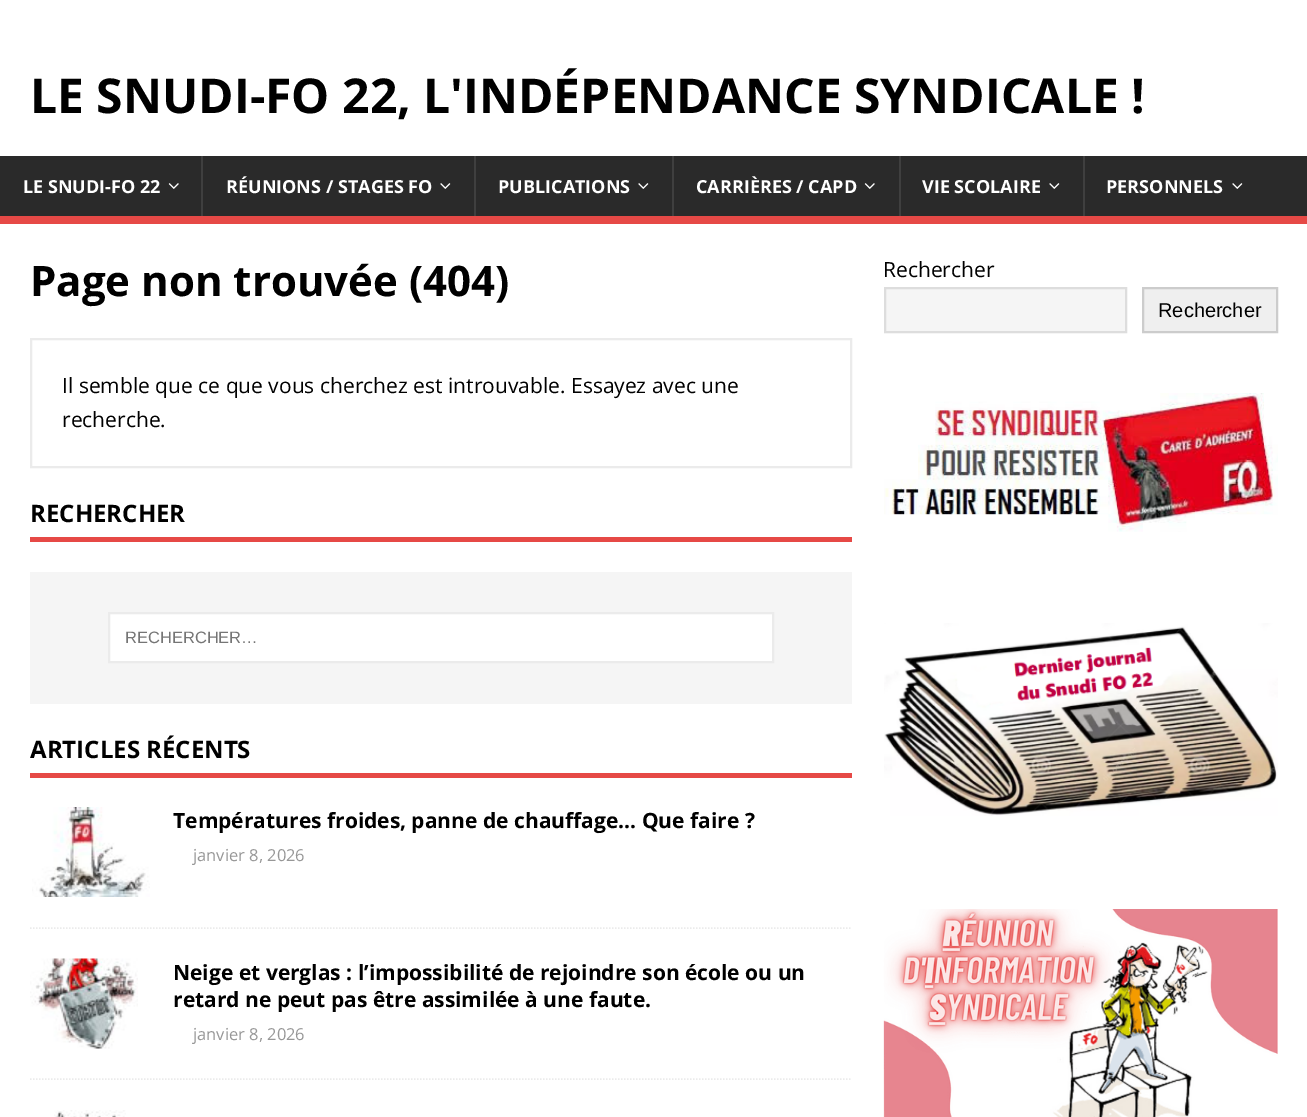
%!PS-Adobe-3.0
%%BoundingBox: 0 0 1307 1117
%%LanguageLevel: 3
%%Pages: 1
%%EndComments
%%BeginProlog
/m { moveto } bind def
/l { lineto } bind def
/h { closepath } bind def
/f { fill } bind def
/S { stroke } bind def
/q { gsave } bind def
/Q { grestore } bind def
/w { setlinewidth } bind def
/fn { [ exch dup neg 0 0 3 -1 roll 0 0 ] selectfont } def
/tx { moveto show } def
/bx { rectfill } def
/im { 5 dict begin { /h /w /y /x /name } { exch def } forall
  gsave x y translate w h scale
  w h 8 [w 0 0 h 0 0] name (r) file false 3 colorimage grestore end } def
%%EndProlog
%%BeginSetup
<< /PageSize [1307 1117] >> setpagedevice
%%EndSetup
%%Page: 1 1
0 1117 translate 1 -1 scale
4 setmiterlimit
1 setgray
0 0 1307 1117 bx
/OpenSans-Bold 48 fn
0 setgray
(LE SNUDI-FO 22, L'INDÉPENDANCE SYNDICALE !) 30 113 tx
0.165 setgray
0 156 1307 60 bx
0.902 0.286 0.275 setrgbcolor
0 216 1307 8 bx
/OpenSans-Bold 18 fn
1 setgray
(LE SNUDI-FO 22) 23 193 tx
(image0.raw) 168 183 11 6 im
0.247 setgray
201 156 2 60 bx
1 setgray
(RÉUNIONS / STAGES FO) 226 193 tx
(image1.raw) 440 183 11 6 im
0.247 setgray
474 156 2 60 bx
1 setgray
(PUBLICATIONS) 498 193 tx
(image1.raw) 638 183 11 6 im
0.247 setgray
672 156 2 60 bx
1 setgray
(CARRIÈRES / CAPD) 696 193 tx
(image0.raw) 864 183 11 6 im
0.247 setgray
899 156 2 60 bx
1 setgray
(VIE SCOLAIRE) 922 193 tx
(image1.raw) 1049 183 11 6 im
0.247 setgray
1083 156 2 60 bx
1 setgray
(PERSONNELS) 1106 193 tx
(image1.raw) 1232 183 11 6 im
/OpenSans-Bold 42 fn
0 setgray
(Page non trouvée \(404\)) 30 296 tx
0.922 setgray
2 w
31 339 820 128 rectstroke
/OpenSans-Regular 21 fn
0 setgray
(Il semble que ce que vous cherchez est introuvable. Essayez avec une) 62 393 tx
(recherche.) 62 427 tx
0.902 0.286 0.275 setrgbcolor
30 537 822 5 bx
/OpenSans-Bold 24 fn
0 setgray
(RECHERCHER) 30 522 tx
0.961 setgray
30 572 822 132 bx
1 setgray
109 613 m 773 613 l 773 662 l 109 662 l h q f Q
0.922 setgray
S
/LiberationSans-Regular 16.5 fn
0.459 setgray
(RECHERCHER…) 125 643 tx
0.902 0.286 0.275 setrgbcolor
30 773 822 5 bx
/OpenSans-Bold 24 fn
0 setgray
(ARTICLES RÉCENTS) 30 758 tx
0.922 setgray
1.5 w
[1.5 1.5] 0 setdash
30 928 m 852 928 l S
(image2.raw) 32 807 118 90 im
/OpenSans-Bold 21 fn
0 setgray
(Températures froides, panne de chauffage… Que faire ?) 173 828 tx
/OpenSans-Regular 16.5 fn
0.592 setgray
(janvier 8, 2026) 193 861 tx
0.922 setgray
30 1079 m 852 1079 l S
(image3.raw) 30 958 108 91 im
/OpenSans-Bold 21 fn
0 setgray
(Neige et verglas : l’impossibilité de rejoindre son école ou un) 173 980 tx
(retard ne peut pas être assimilée à une faute.) 173 1007 tx
/OpenSans-Regular 16.5 fn
0.592 setgray
(janvier 8, 2026) 193 1040 tx
(image4.raw) 54 1110 72 7 im
/OpenSans-Regular 21 fn
0 setgray
(Rechercher) 883 277 tx
0.961 setgray
885 288 m 1126 288 l 1126 332 l 885 332 l h q f Q
0.867 setgray
2 w
[] 0 setdash
S
0.937 setgray
1143 288 m 1277 288 l 1277 332 l 1143 332 l h q f Q
0.8 setgray
S
/LiberationSans-Regular 20 fn
0 setgray
(Rechercher) 1158 317 tx
(image5.raw) 884 393 394 139 im
(image6.raw) 884 623 394 193 im
(image7.raw) 883 909 395 208 im
showpage
%%EOF
